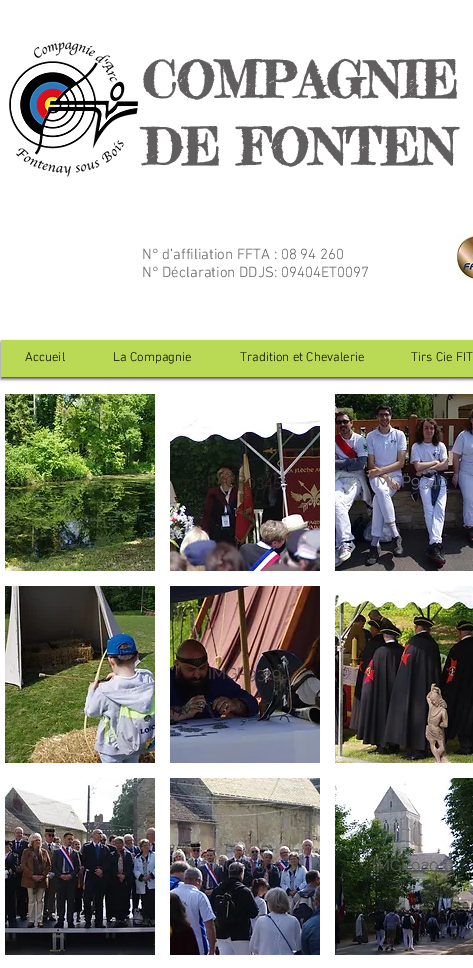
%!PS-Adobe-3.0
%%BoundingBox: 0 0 473 968
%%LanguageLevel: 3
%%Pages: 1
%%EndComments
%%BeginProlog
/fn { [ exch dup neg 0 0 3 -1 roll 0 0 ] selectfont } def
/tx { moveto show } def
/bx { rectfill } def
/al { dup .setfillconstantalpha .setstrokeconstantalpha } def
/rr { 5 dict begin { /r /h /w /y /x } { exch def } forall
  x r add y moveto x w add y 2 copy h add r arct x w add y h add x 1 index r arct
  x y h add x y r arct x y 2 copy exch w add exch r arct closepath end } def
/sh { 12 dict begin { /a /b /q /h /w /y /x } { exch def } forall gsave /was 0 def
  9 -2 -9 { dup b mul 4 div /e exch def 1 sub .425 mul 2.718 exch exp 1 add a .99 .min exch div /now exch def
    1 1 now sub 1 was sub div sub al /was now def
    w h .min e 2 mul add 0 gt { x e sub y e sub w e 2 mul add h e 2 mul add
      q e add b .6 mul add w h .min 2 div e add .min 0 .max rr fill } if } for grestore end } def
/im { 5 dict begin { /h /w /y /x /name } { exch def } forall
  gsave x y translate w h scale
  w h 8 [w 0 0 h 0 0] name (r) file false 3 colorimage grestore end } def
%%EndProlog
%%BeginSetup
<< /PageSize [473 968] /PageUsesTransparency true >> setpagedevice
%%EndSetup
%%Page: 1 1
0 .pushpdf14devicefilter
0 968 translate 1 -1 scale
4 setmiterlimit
1 setgray
0 0 473 968 bx
(image0.raw) 9 42 130 135 im
/FrederickatheGreat-Bold 50 fn
0.376 0.369 0.369 setrgbcolor
(COMPAGNIE) 142 98 tx
(DE FONTEN) 142 165 tx
/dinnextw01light-Light 15 fn
(N° d’affiliation FFTA : 08 94 260) 142 259 tx
(N° Déclaration DDJS: 09404ET0097) 142 277 tx
(image1.raw) 457 235 16 44 im
0 setgray
1 342 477 37 0 1.5 0.7 sh
0.729 0.855 0.333 setrgbcolor
1 340 472 37 bx
/dinnextw01light-Light 13 fn
0 setgray
(Accueil) 25 361 tx
(La Compagnie) 113 361 tx
(Tradition et Chevalerie) 240 361 tx
(Tirs Cie FIT) 411 361 tx
(image2.raw) 5 394 150 177 im
/Raleway-Regular 16 fn
0.333 0.4 0.184 setrgbcolor
(IMGP9347) 43 487 tx
(image3.raw) 170 394 150 177 im
0.192 0.161 0.137 setrgbcolor
(IMGP9345) 207 487 tx
(image4.raw) 335 394 138 177 im
0.412 0.408 0.482 setrgbcolor
(IMGP9340) 372 487 tx
(image5.raw) 5 586 150 177 im
(image6.raw) 170 586 150 177 im
0.314 0.243 0.247 setrgbcolor
(IMGP9319) 208 679 tx
(image7.raw) 335 586 138 177 im
(image8.raw) 5 778 150 177 im
(image9.raw) 170 778 150 177 im
0.286 0.259 0.325 setrgbcolor
(IMGP9305) 207 871 tx
(image10.raw) 335 778 138 177 im
0.337 0.361 0.322 setrgbcolor
(IMGP9303) 372 871 tx
.poppdf14devicefilter showpage
%%EOF
